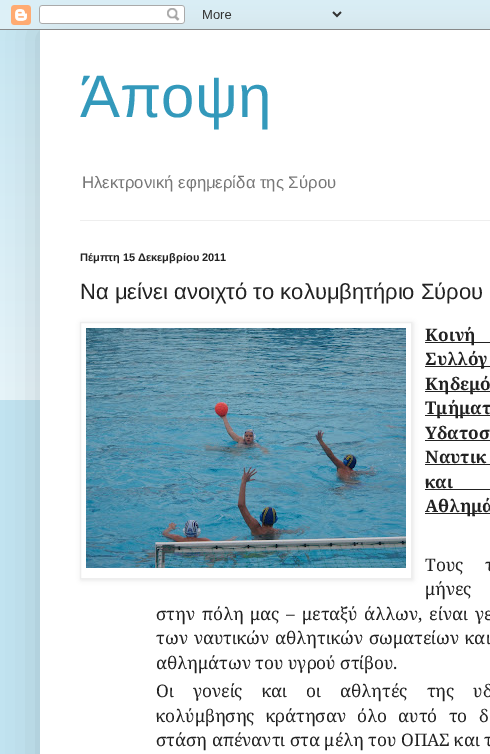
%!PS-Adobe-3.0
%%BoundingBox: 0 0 490 754
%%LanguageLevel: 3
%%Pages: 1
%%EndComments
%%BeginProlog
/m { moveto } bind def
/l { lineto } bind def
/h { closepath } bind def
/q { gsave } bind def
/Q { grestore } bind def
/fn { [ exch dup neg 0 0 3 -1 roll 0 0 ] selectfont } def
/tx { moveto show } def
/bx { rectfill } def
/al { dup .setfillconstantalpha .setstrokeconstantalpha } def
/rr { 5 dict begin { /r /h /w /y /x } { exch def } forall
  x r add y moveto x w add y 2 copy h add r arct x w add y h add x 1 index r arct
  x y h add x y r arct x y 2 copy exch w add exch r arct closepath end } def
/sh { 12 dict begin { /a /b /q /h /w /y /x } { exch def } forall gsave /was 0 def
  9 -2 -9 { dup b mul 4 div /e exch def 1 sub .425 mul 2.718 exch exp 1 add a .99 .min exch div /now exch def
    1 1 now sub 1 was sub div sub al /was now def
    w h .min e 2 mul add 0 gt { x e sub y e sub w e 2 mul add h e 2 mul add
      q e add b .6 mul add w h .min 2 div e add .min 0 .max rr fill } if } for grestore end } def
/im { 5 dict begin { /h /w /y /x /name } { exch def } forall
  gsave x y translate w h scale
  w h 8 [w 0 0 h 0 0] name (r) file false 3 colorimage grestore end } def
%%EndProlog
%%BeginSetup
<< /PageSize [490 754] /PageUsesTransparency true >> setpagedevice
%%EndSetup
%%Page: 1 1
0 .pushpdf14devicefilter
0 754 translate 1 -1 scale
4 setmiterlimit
0.761 0.894 0.945 setrgbcolor
0 0 490 754 bx
(image1.raw) 0 10 490 390 im
0 setgray
40 30 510 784 0 20 0.15 sh
(image0.raw) 0 0 490 30 im
1 setgray
40 30 450 724 bx
/LiberationSans-Regular 60 fn
0.2 0.6 0.733 setrgbcolor
(Άποψη) 80 117 tx
/LiberationSans-Regular 16.75 fn
0.467 setgray
(Ηλεκτρονική εφημερίδα της Σύρου) 82 188 tx
0.933 setgray
80 220 410 1 bx
/LiberationSans-Bold 11 fn
0.133 setgray
(Πέμπτη 15 Δεκεμβρίου 2011) 80 261 tx
/LiberationSans-Regular 22 fn
(Nα μείνει ανοιχτό το κολυμβητήριο Σύρου) 80 299 tx
q
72 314 m 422 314 l 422 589 l 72 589 l h 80 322 m 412 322 l 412 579 l 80 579 l h eoclip newpath
0 setgray
81 323 332 257 0 2.5 0.1 sh
Q
0.933 setgray
80.5 322.5 331 256 rectstroke
(image2.raw) 86 328 320 240 im
0.133 setgray
425 342 65 1 bx
/NotoSerif-Bold 17.3 fn
425 341 m 14 0 32 (Κοινή) widthshow
425 366 65 1 bx
425 365 m 27 0 32 (Συλλόγ) widthshow
425 391 65 1 bx
425 390 m 24 0 32 (Κηδεμό) widthshow
425 415 65 1 bx
(Τμήματ) 425 414 tx
(Υδατοσ) 425 439 tx
425 440 65 1 bx
425 463 m 9 0 32 (Ναυτικ) widthshow
425 464 65 1 bx
425 488 m 49 0 32 (και) widthshow
425 489 65 1 bx
425 513 65 1 bx
(Αθλημά) 425 512 tx
/NotoSerif-Regular 17.3 fn
425 571 m 17 0 32 (Τους τ) widthshow
425 595 m 33 0 32 (μήνες) widthshow
156 620 m 2.25 0 32 (στην πόλη μας – μεταξύ άλλων, είναι γε) widthshow
156 644 m 1.5 0 32 (των ναυτικών αθλητικών σωματείων και) widthshow
(αθλημάτων του υγρού στίβου.) 156 669 tx
156 697 m 14.5 0 32 (Οι γονείς και οι αθλητές της υδ) widthshow
156 722 m 6.75 0 32 (κολύμβησης κράτησαν όλο αυτό το δ) widthshow
(στάση απέναντι στα μέλη του ΟΠΑΣ και τ) 156 746 tx
.poppdf14devicefilter showpage
%%EOF
